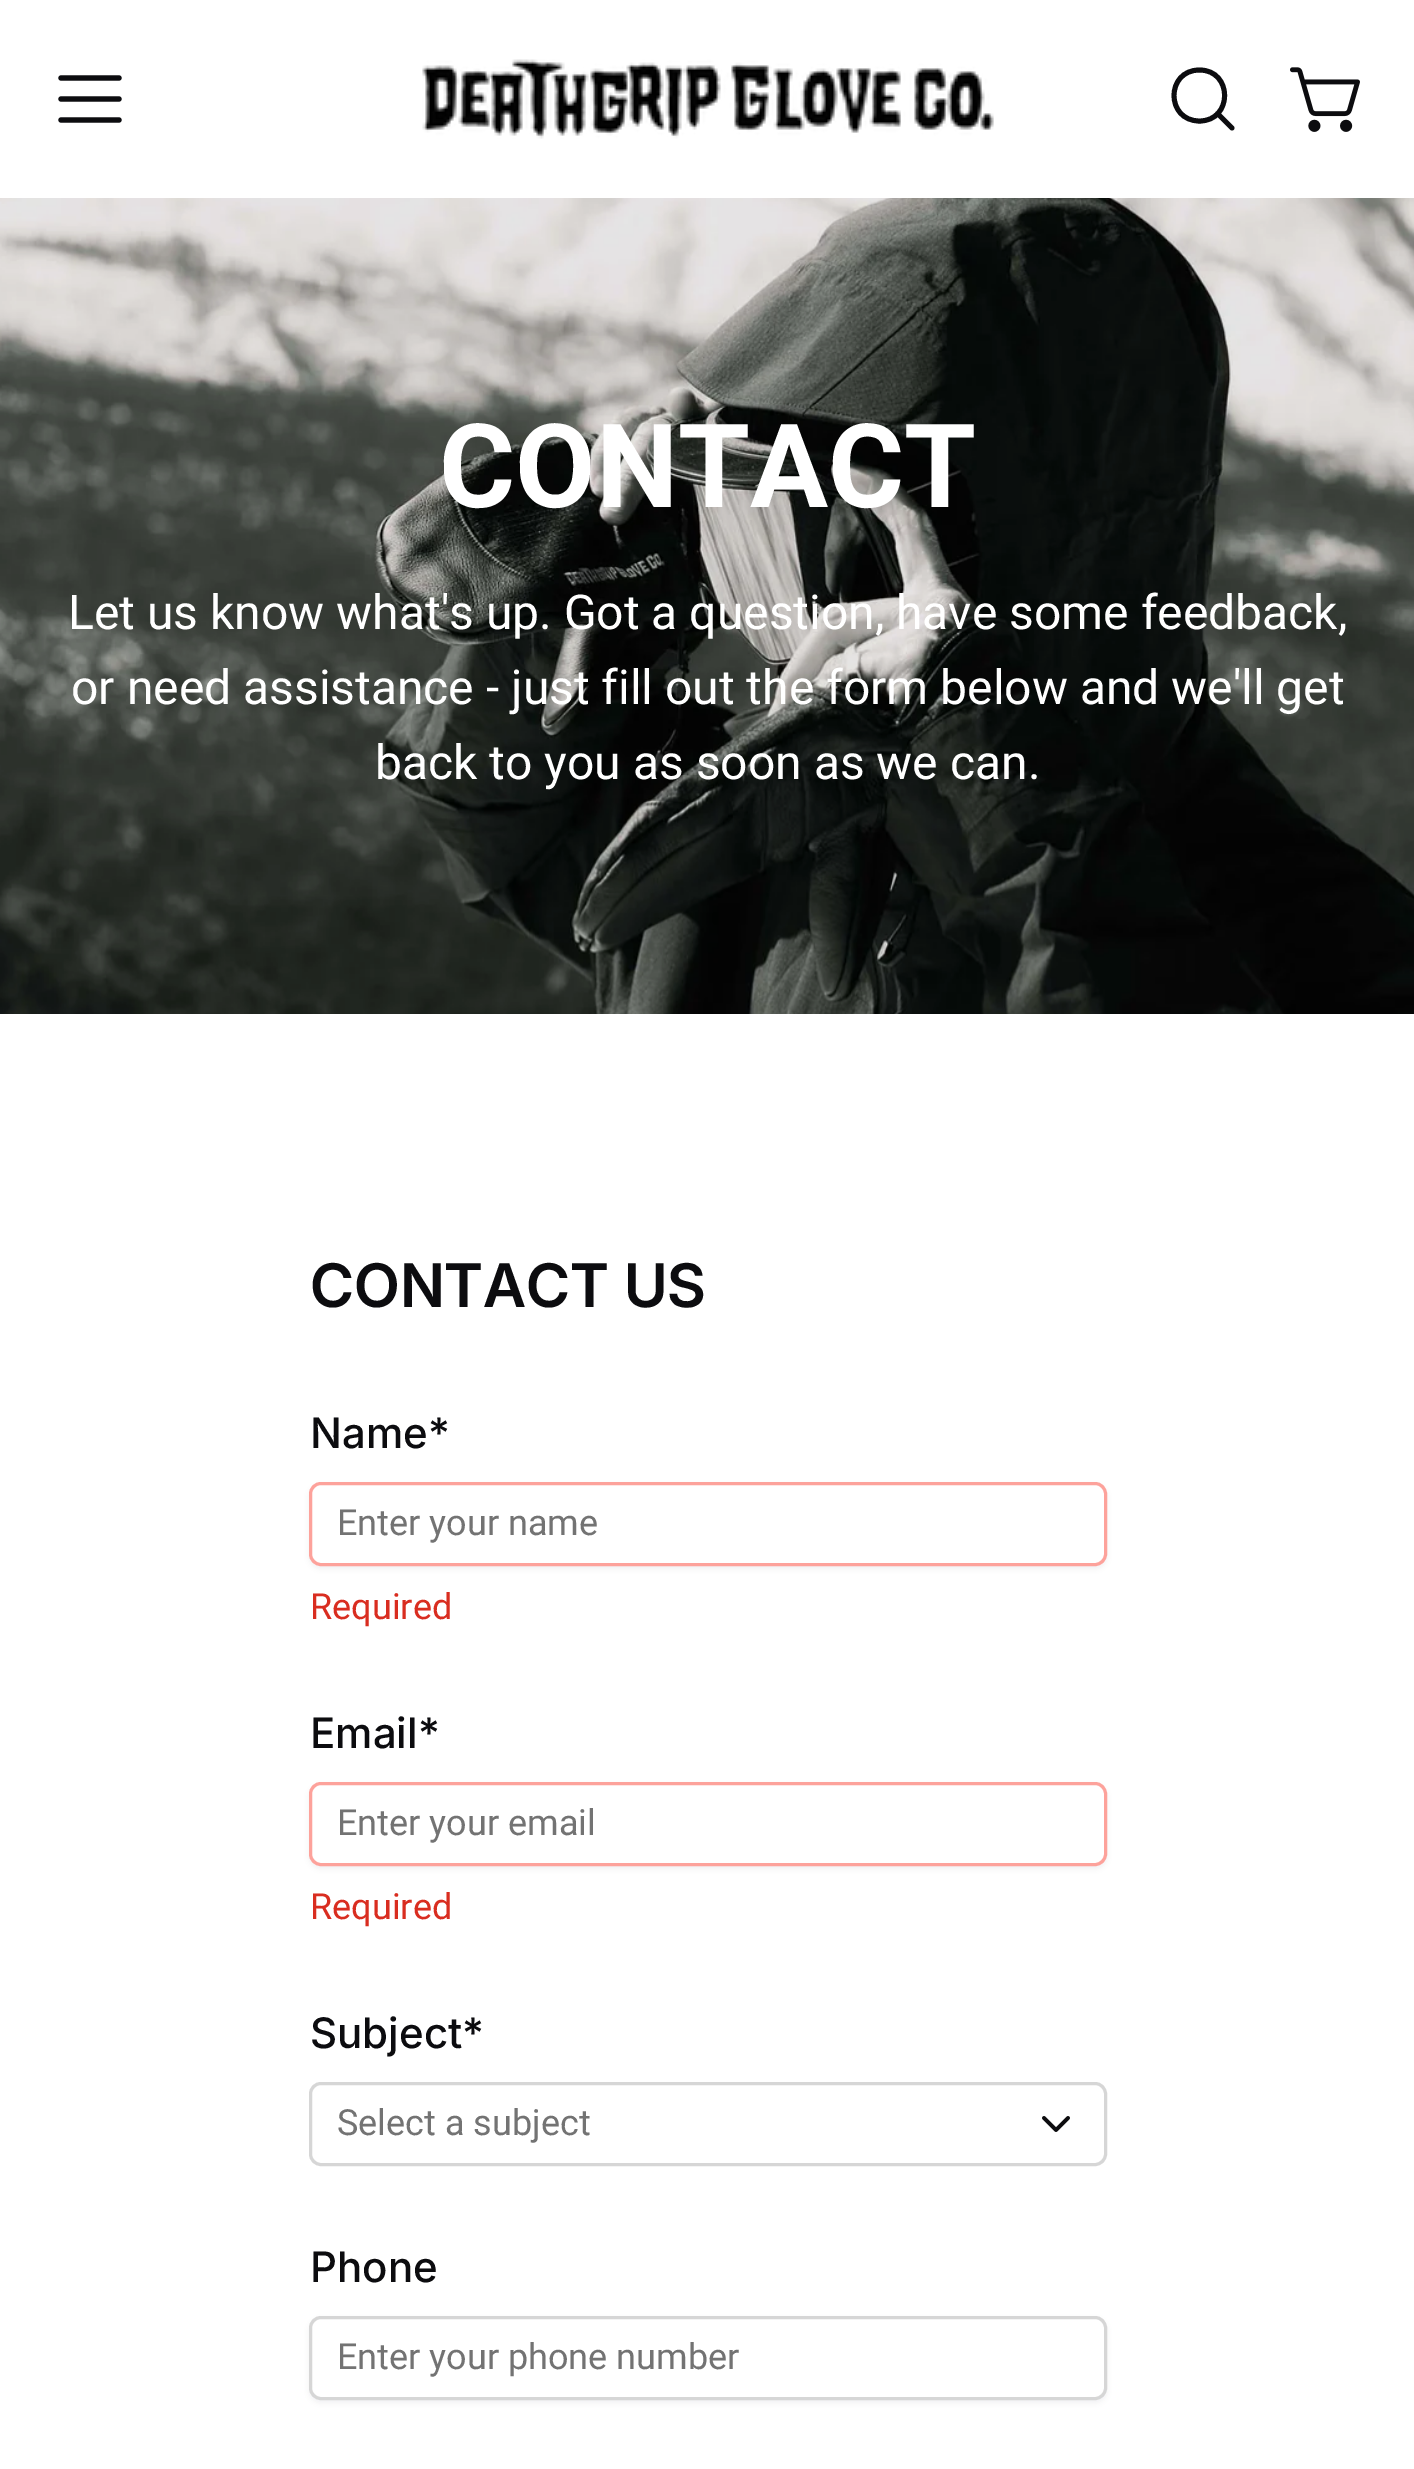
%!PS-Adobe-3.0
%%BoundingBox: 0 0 1414 2469
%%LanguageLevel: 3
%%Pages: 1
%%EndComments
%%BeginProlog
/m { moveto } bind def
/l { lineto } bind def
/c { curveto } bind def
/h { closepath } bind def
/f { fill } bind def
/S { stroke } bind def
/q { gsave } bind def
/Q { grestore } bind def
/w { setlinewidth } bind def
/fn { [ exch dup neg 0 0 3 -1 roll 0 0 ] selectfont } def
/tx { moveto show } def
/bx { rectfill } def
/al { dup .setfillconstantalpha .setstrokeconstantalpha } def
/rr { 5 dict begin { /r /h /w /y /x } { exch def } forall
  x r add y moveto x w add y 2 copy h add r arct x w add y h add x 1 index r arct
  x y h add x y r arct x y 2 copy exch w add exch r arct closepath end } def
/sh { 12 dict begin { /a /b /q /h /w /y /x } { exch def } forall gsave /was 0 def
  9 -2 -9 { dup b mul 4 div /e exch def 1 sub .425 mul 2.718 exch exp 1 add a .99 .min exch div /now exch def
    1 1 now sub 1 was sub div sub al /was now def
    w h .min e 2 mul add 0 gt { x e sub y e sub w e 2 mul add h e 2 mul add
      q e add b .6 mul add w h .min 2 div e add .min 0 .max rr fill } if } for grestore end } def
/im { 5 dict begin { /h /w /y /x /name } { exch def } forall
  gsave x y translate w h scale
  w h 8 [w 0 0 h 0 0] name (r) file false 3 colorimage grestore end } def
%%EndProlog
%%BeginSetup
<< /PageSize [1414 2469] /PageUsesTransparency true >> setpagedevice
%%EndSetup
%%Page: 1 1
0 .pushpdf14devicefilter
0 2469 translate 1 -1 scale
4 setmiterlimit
1 setgray
0 0 1414 2469 bx
0.047 0.047 0.059 setrgbcolor
5.2 w
1 setlinecap
1 setlinejoin
61 99 m 119 99 l 61 78 m 119 78 l 61 120 m 119 120 l S
(image0.raw) 422 59 572 80 im
4.9 w
1199.5 121 m 1233 121 1233 70 1199.5 70 c 1165.5 70 1165.5 121 1199.5 121 c h 1217.5 113.5 m 1232 128 l S
(image1.raw) 1290 67 70 65 im
(image2.raw) 0 198 1414 816 im
/Roboto-Bold 116.5 fn
1 setgray
(CONTACT) 439 507 tx
/Roboto-Regular 48 fn
(Let us know what's up. Got a question, have some feedback,) 68 629 tx
(or need assistance - just fill out the form below and we'll get) 71 704 tx
(back to you as soon as we can.) 375 779 tx
/Inter-SemiBold 60 fn
0.047 0.047 0.059 setrgbcolor
(CONTACT US) 310 1307 tx
/Inter-Medium 42 fn
(Name*) 310 1448 tx
0.063 0.094 0.157 setrgbcolor
309 1485 798 84 12 3 0.05 sh
1 setgray
310.5 1483.5 795 81 10.5 rr q f Q
0.992 0.635 0.608 setrgbcolor
3 w
0 setlinecap
0 setlinejoin
S
/Roboto-Regular 36 fn
0.451 setgray
(Enter your name) 337 1535 tx
0.851 0.176 0.125 setrgbcolor
(Required) 310 1619 tx
/Inter-Medium 42 fn
0.047 0.047 0.059 setrgbcolor
(Email*) 310 1748 tx
0.063 0.094 0.157 setrgbcolor
309 1785 798 84 12 3 0.05 sh
1 setgray
310.5 1783.5 795 81 10.5 rr q f Q
0.992 0.635 0.608 setrgbcolor
S
/Roboto-Regular 36 fn
0.451 setgray
(Enter your email) 337 1835 tx
0.851 0.176 0.125 setrgbcolor
(Required) 310 1919 tx
/Inter-Medium 42 fn
0.047 0.047 0.059 setrgbcolor
(Subject*) 310 2048 tx
0.839 setgray
310.5 2083.5 795 81 10.5 rr S
/Roboto-Regular 36 fn
0.451 setgray
(Select a subject) 337 2135 tx
(image3.raw) 1042 2116 28 16 im
/Inter-Medium 42 fn
0.047 0.047 0.059 setrgbcolor
(Phone) 310 2282 tx
0.063 0.094 0.157 setrgbcolor
309 2319 798 84 12 3 0.05 sh
1 setgray
310.5 2317.5 795 81 10.5 rr q f Q
0.839 setgray
S
/Roboto-Regular 36 fn
0.451 setgray
(Enter your phone number) 337 2369 tx
.poppdf14devicefilter showpage
%%EOF
